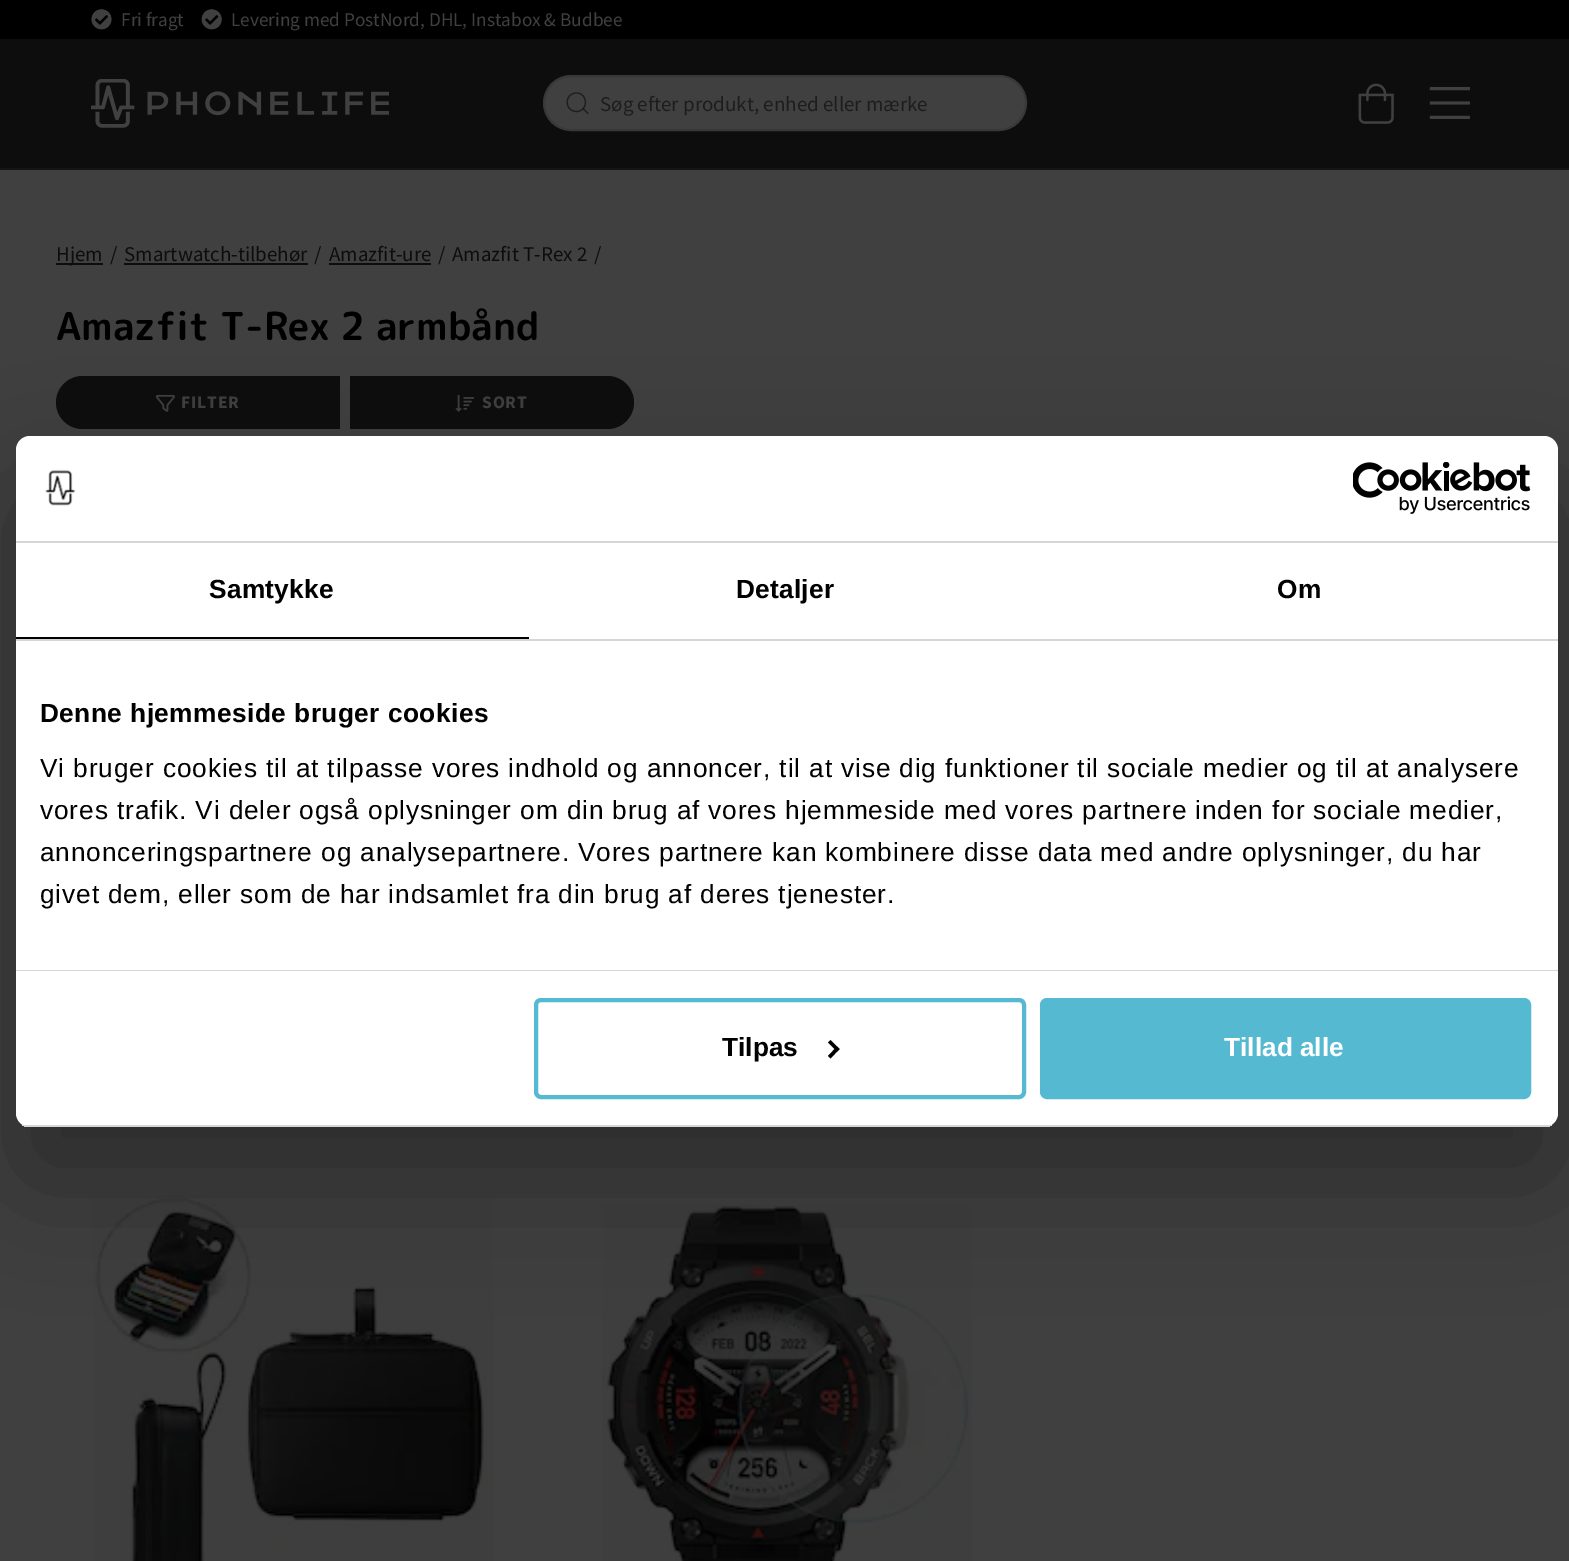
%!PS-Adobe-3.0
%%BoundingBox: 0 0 1569 1561
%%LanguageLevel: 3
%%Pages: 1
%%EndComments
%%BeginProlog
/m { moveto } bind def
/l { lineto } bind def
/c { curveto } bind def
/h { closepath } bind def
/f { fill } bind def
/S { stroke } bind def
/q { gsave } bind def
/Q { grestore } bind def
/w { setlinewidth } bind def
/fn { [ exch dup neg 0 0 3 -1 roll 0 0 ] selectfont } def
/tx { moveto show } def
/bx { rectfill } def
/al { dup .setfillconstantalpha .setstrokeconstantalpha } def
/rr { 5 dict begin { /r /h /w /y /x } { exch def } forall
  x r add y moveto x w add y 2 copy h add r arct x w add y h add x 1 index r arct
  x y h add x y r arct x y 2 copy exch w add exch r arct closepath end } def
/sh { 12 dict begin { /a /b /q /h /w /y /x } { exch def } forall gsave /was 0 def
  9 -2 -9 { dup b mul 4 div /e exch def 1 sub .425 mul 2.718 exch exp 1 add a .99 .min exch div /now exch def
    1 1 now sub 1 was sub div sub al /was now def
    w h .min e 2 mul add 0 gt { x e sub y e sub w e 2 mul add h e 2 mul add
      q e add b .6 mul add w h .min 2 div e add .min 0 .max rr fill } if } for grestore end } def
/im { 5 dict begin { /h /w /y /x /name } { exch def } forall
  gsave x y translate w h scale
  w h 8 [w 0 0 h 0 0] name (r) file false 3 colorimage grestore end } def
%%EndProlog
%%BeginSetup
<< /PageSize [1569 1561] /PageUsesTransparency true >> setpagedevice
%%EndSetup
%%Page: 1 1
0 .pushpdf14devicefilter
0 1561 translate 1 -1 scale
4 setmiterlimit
0.251 setgray
0 0 1569 1561 bx
0 setgray
0 0 1569 39 bx
(image0.raw) 91 9 21 21 im
/SourceSansPro-Regular 19.25 fn
0.251 setgray
(Fri fragt) 121 26 tx
(image1.raw) 201 9 21 21 im
(Levering med PostNord, DHL, Instabox & Budbee) 231 26 tx
0.051 setgray
0 39 1569 129 bx
0.082 setgray
0 168 1569 2 bx
(image2.raw) 91 79 298 49 im
0.251 setgray
544 76 482 54 27 rr q f Q
0.22 setgray
2 w
S
0.125 0.122 0.125 setrgbcolor
1.2 w
1 setlinecap
1 setlinejoin
576.5 111.5 m 588.5 111.5 588.5 93 576.5 93 c 564 93 564 111.5 576.5 111.5 c h S
0.75 al
0.082 setgray
588 113.5 m 583 108.5 l S
/SourceSansPro-Regular 21 fn
1 al
0.114 setgray
(Søg efter produkt, enhed eller mærke) 600 111 tx
(image3.raw) 1358 83 36 41 im
(image4.raw) 1429 87 41 32 im
0.051 setgray
56 263 47 2 bx
(Hjem) 56 261 tx
(/) 110 261 tx
(Smartwatch-tilbehør) 124 261 tx
124 263 184 2 bx
(/) 314 261 tx
(Amazfit-ure) 329 261 tx
329 263 102 2 bx
(/) 438 261 tx
(Amazfit T-Rex 2) 452 261 tx
(/) 594 261 tx
/RoundedMplus1cBold-Bold 38.5 fn
0 setgray
(Amazfit T-Rex 2 armbånd) 56 340 tx
0.051 setgray
82.5 376 m 340 376 l 340 429 l 82.5 429 l 68 429 56 417 56 402.5 c 56 388 68 376 82.5 376 c h f
(image5.raw) 156 394 19 18 im
/SourceSansPro-Bold 17.5 fn
0.251 setgray
181 408 m 0.88 0 (FILTER) ashow
0.051 setgray
350 376 m 607.5 376 l 622 376 634 388 634 402.5 c 634 417 622 429 607.5 429 c 350 429 l h f
(image6.raw) 455 394 19 18 im
0.251 setgray
482 408 m 0.88 0 (SORT) ashow
(image7.raw) 94 1196 400 365 im
(image8.raw) 602 1205 370 356 im
0 setgray
16 492 1542 691 14 59.5 0.3 sh
1 setgray
16 436 1542 691 14 rr f
0.839 setgray
16 541 1542 2 bx
(image9.raw) 45 469 31 37 im
(image10.raw) 1353 462 178 52 im
16 639 1542 2 bx
0 setgray
16 637 513 2 bx
/LiberationSans-Bold 26.25 fn
209 598 m 0.25 0 (Samtykke) ashow
736 598 m 0.25 0 (Detaljer) ashow
1277 598 m 0.25 0 (Om) ashow
0.839 setgray
16 970 1542 1 bx
0 setgray
40 722 m 0.45 0 (Denne hjemmeside bruger cookies) ashow
/LiberationSans-Regular 26.25 fn
40 777 m 0.88 0 (Vi bruger cookies til at tilpasse vores indhold og annoncer, til at vise dig funktioner til sociale medier og til at analysere) ashow
40 819 m 0.88 0 (vores trafik. Vi deler også oplysninger om din brug af vores hjemmeside med vores partnere inden for sociale medier,) ashow
40 861 m 0.88 0 (annonceringspartnere og analysepartnere. Vores partnere kan kombinere disse data med andre oplysninger, du har) ashow
40 903 m 0.88 0 (givet dem, eller som de har indsamlet fra din brug af deres tjenester.) ashow
q
16 436 1542 691 14 rr clip newpath
0.839 setgray
16 1125 1542 2 bx
Q
0.329 0.725 0.82 setrgbcolor
4 w
0 setlinecap
0 setlinejoin
536 1000 488 97 5 rr S
/LiberationSans-Bold 26.25 fn
0 setgray
(Tilpas) 722 1056 tx
830.5 1040 m 839.5 1049 l 837 1051.5 l 828 1042.5 l h f
837 1046.5 m 839.5 1049 l 830.5 1058.5 l 828 1056 l h f
0.329 0.725 0.82 setrgbcolor
1042 1000 487 97 5 rr q f Q
S
1 setgray
(Tillad alle) 1224 1056 tx
.poppdf14devicefilter showpage
%%EOF
